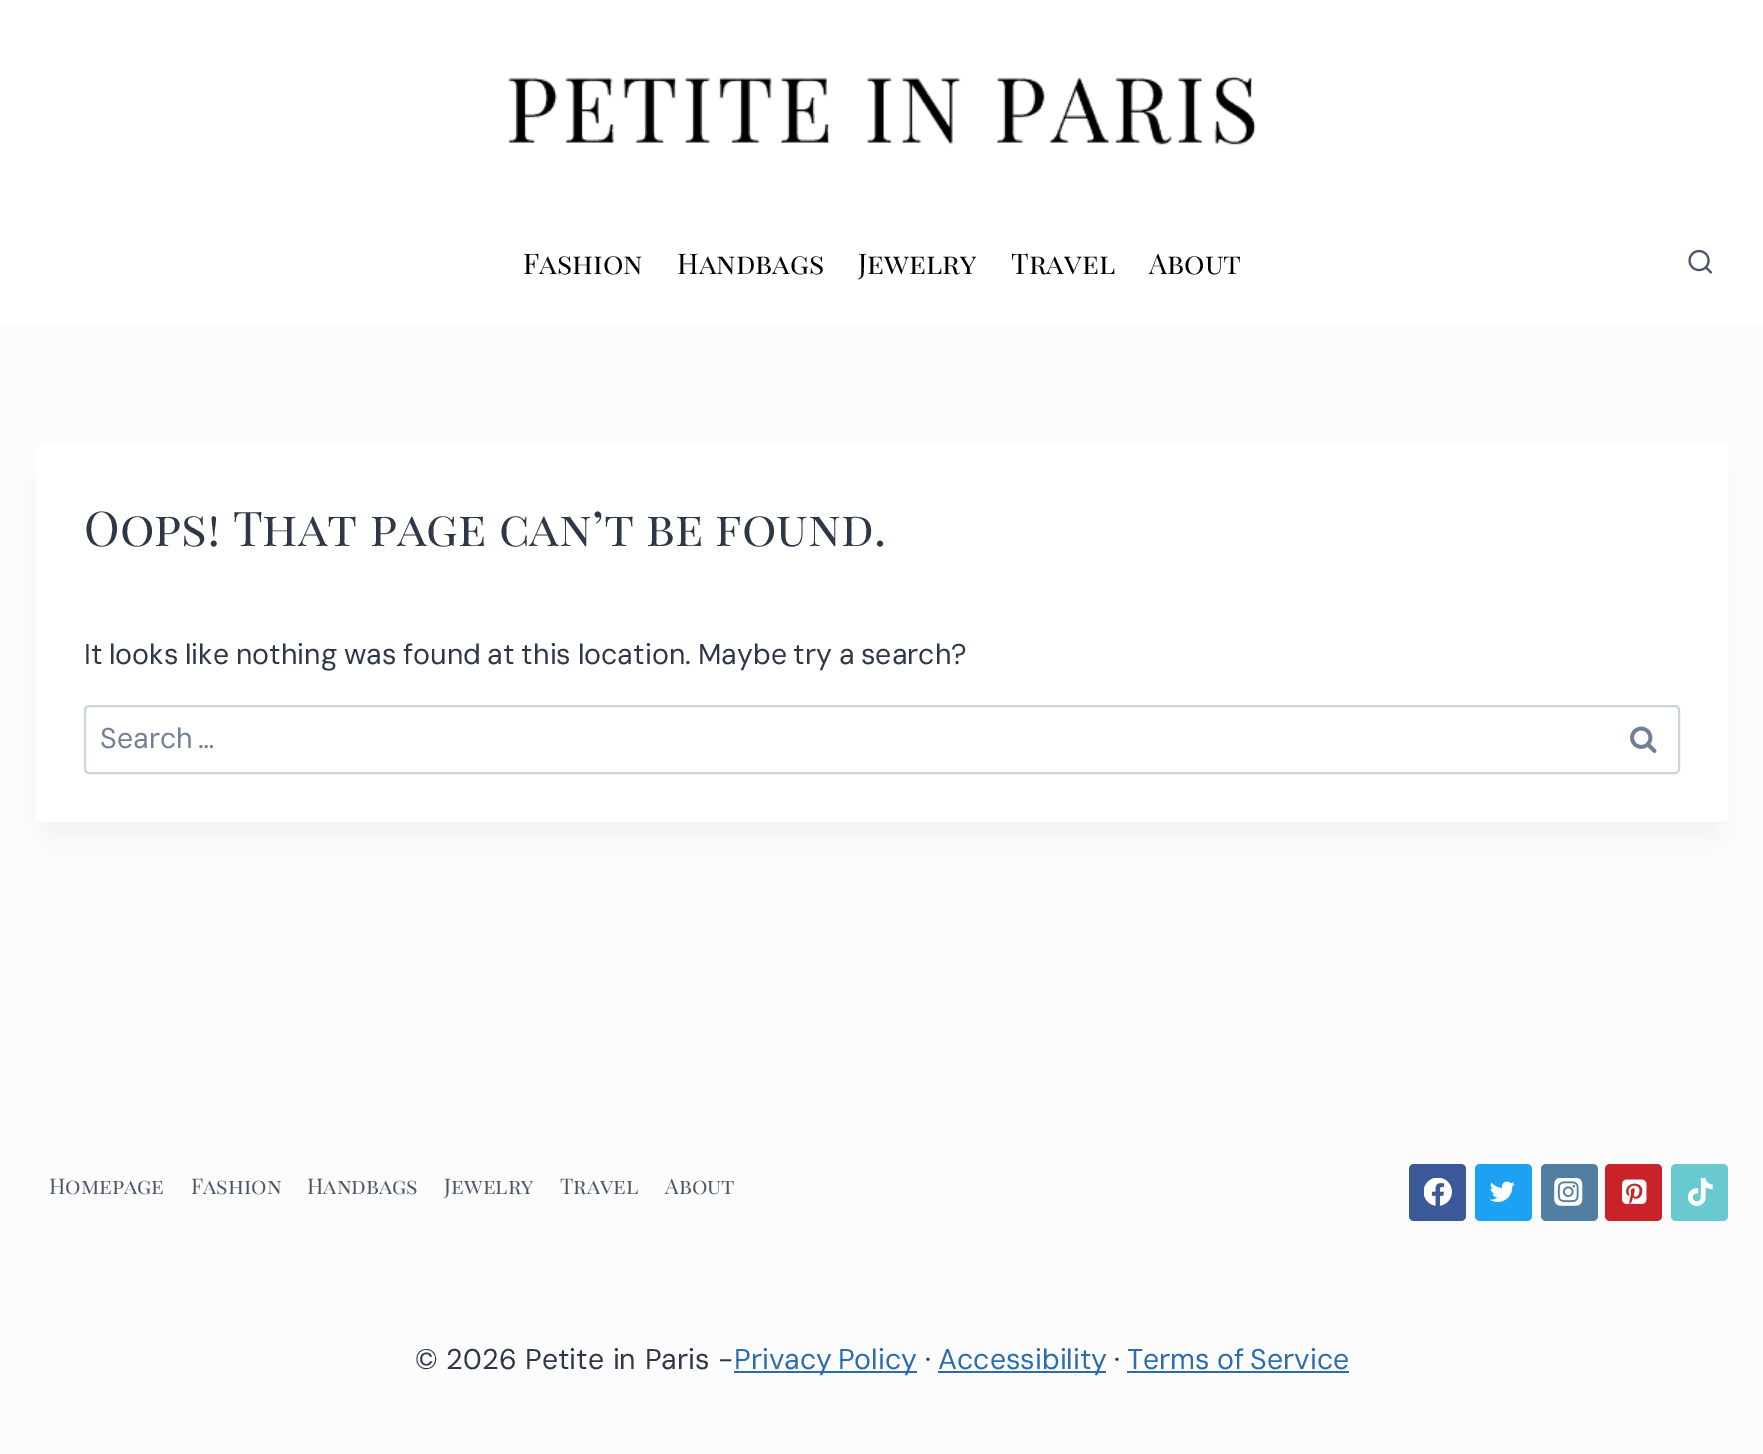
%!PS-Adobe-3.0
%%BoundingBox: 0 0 1763 1454
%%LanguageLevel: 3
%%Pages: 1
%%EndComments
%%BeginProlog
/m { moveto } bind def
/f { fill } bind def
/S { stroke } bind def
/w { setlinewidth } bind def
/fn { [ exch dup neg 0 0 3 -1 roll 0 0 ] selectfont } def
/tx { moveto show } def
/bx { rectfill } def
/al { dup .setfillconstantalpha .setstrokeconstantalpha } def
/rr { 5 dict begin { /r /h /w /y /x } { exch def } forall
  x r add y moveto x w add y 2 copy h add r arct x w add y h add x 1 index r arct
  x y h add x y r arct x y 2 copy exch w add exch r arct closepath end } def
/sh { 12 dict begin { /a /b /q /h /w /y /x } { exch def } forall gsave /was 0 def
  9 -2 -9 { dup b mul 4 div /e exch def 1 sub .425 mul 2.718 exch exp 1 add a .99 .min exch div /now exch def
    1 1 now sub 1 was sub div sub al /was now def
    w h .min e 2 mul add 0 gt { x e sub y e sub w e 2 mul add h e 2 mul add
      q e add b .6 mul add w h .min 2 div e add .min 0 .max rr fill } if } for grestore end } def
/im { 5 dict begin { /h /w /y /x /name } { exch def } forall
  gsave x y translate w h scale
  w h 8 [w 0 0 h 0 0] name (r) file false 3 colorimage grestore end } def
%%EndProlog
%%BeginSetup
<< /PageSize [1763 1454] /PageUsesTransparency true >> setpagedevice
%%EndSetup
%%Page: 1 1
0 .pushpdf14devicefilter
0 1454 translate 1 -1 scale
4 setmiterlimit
0.988 setgray
0 0 1763 1454 bx
1 setgray
0 0 1763 323 bx
(image0.raw) 508 76 748 69 im
/PlayfairDisplaySC-Regular 28.5 fn
0 setgray
(Fashion) 523 274 tx
(Handbags) 677 274 tx
(Jewelry) 858 274 tx
(Travel) 1011 274 tx
(About) 1149 274 tx
(image1.raw) 1688 249 25 25 im
51 480 1662 350 0 19 0.05 sh
1 setgray
36 443 1692 379 6 rr f
/PlayfairDisplaySC-Regular 48 fn
0.176 0.216 0.282 setrgbcolor
(Oops! That page can’t be found.) 84 546 tx
/DMSans-Regular 28.5 fn
84 664 m -1 0 32 (It looks like nothing was found at this location. Maybe try a search?) widthshow
0.796 0.835 0.878 setrgbcolor
2 w
85 706 1594 67 4 rr S
0.443 0.502 0.588 setrgbcolor
100 748 m -2 0 32 (Search …) widthshow
(image2.raw) 1630 726 27 27 im
/PlayfairDisplaySC-Regular 21.5 fn
0.29 0.333 0.408 setrgbcolor
(Homepage) 49 1194 tx
(Fashion) 191 1194 tx
(Handbags) 307 1194 tx
(Jewelry) 444 1194 tx
(Travel) 560 1194 tx
(About) 665 1194 tx
0.231 0.349 0.596 setrgbcolor
1409 1164 57 57 5 rr f
(image3.raw) 1424 1178 28 28 im
0.114 0.631 0.949 setrgbcolor
1475 1164 57 57 5 rr f
(image4.raw) 1489 1181 26 21 im
0.318 0.498 0.643 setrgbcolor
1541 1164 57 57 5 rr f
(image5.raw) 1554 1178 29 28 im
0.788 0.133 0.157 setrgbcolor
1605 1164 57 57 5 rr f
(image6.raw) 1622 1179 25 25 im
0.412 0.788 0.816 setrgbcolor
1671 1164 57 57 5 rr f
(image7.raw) 1687 1178 26 28 im
/DMSans-Regular 28.5 fn
0.176 0.216 0.282 setrgbcolor
415 1369 m 1 0 32 (© 2026 Petite in Paris -) widthshow
0.169 0.424 0.69 setrgbcolor
734 1371 183 2 bx
734 1369 m -2 0 32 (Privacy Policy) widthshow
0.176 0.216 0.282 setrgbcolor
(·) 925 1369 tx
0.169 0.424 0.69 setrgbcolor
938 1371 168 2 bx
(Accessibility) 938 1369 tx
0.176 0.216 0.282 setrgbcolor
(·) 1114 1369 tx
0.169 0.424 0.69 setrgbcolor
1127 1369 m -1 0 32 (Terms of Service) widthshow
1127 1371 222 2 bx
.poppdf14devicefilter showpage
%%EOF
